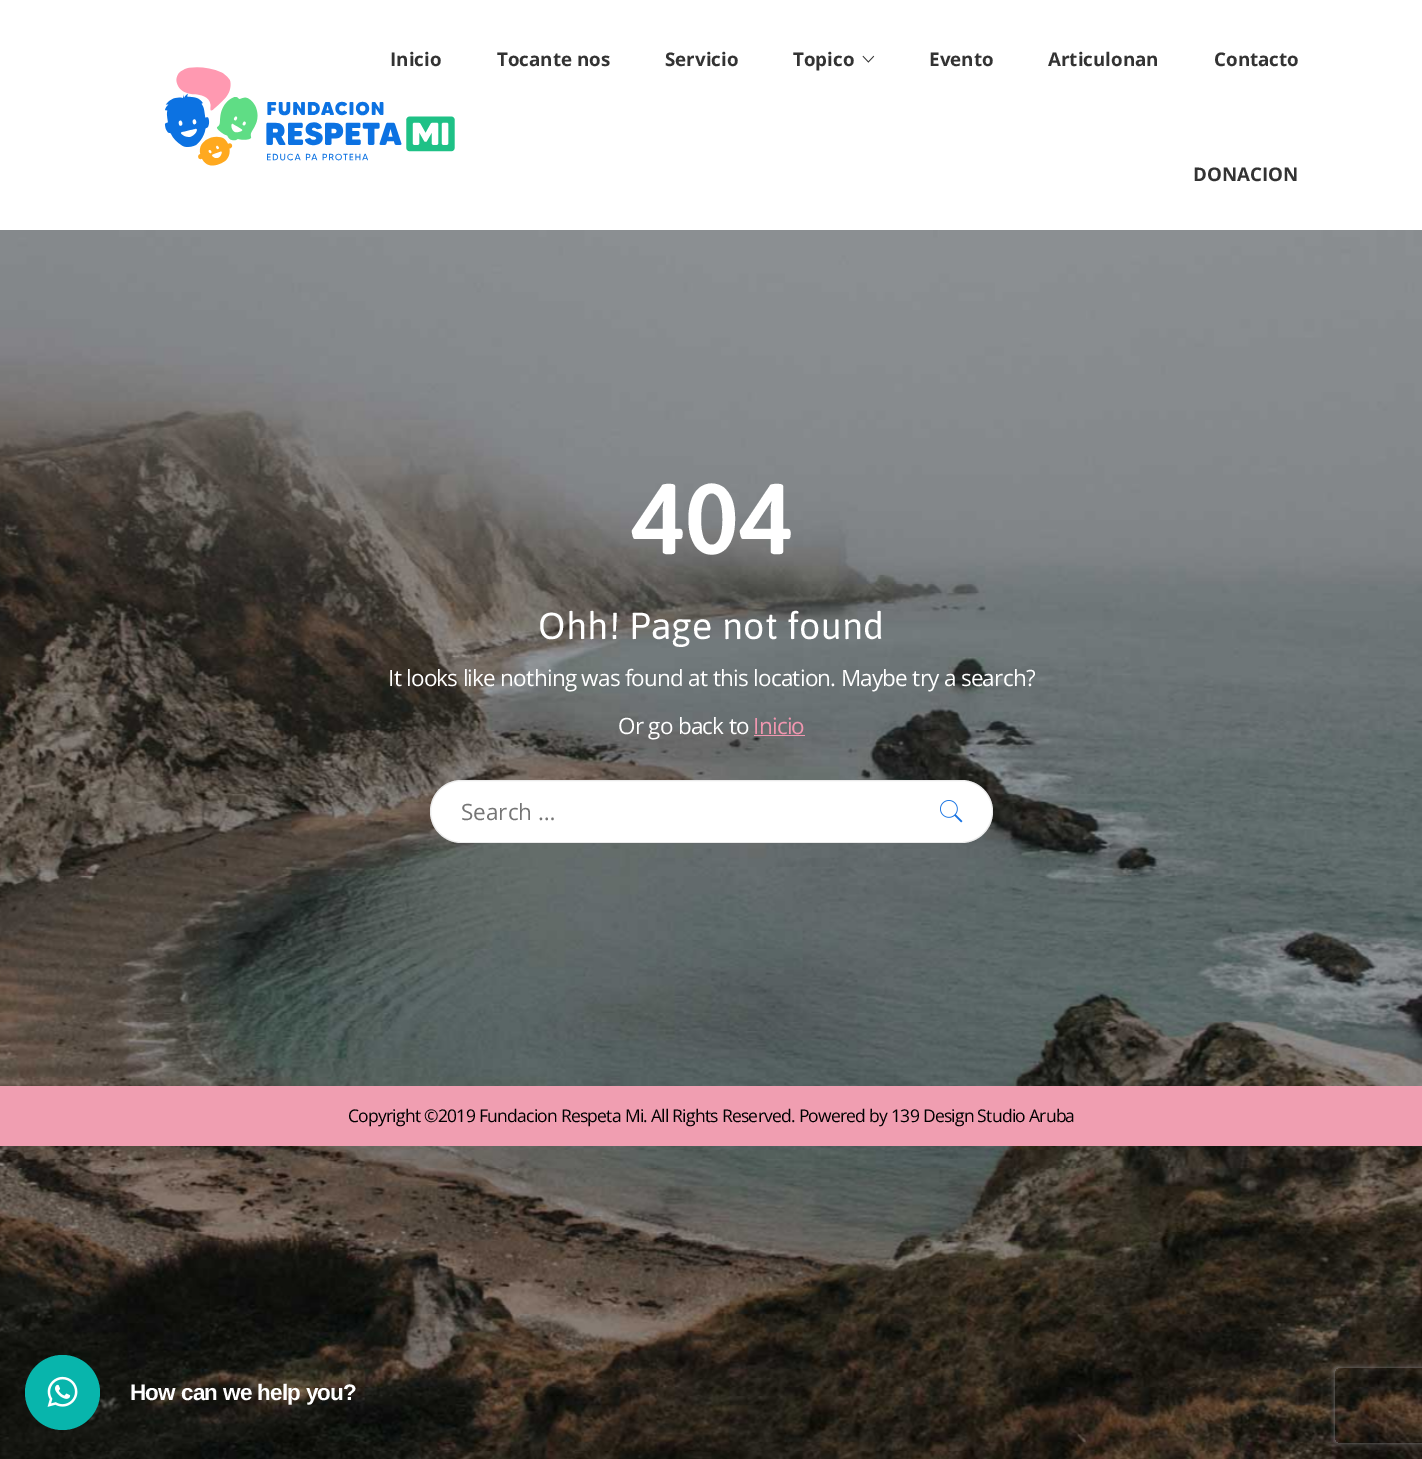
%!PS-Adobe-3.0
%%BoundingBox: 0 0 1422 1459
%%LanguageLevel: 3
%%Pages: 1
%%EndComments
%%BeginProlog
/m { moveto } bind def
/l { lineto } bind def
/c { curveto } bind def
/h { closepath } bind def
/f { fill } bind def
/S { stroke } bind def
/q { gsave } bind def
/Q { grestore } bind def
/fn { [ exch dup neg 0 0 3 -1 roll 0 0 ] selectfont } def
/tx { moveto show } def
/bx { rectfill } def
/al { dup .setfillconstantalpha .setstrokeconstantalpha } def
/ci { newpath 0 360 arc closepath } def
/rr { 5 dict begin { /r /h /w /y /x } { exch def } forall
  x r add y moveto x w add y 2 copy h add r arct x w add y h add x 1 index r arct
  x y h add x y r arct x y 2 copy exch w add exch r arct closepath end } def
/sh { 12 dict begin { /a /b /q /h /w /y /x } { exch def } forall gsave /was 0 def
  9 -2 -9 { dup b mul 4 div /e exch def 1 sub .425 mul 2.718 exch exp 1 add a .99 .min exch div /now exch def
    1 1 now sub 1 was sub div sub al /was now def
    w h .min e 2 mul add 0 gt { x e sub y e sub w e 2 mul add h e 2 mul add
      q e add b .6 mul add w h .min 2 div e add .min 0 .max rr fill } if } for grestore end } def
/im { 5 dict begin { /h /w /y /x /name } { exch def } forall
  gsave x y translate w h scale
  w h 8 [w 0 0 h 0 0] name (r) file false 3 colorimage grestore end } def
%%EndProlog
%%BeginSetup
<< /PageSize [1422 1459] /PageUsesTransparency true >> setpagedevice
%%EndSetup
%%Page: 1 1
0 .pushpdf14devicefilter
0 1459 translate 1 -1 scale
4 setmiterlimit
1 setgray
0 0 1422 1459 bx
(image0.raw) 0 230 1422 1229 im
(image1.raw) 164 67 291 99 im
/OpenSans-Bold 18.75 fn
0.2 setgray
(Inicio) 390 66 tx
(Tocante nos) 497 66 tx
(Servicio) 665 66 tx
(Topico) 793 66 tx
(image2.raw) 862 55 13 8 im
(Evento) 929 66 tx
(Articulonan) 1048 66 tx
(Contacto) 1214 66 tx
(DONACION) 1193 181 tx
/Asap-SemiBold 100 fn
1 setgray
631 554 m 0.25 0 (404) ashow
/Asap-Regular 37.5 fn
538 639 m 0.25 0 (Ohh! Page not found) ashow
/OpenSans-Regular 22.5 fn
388 686 m -0.75 0 (It looks like nothing was found at this location. Maybe try a search?) ashow
618 734 m -0.75 0 (Or go back to) ashow
0.945 0.592 0.69 setrgbcolor
753 734 m -0.75 0 (Inicio) ashow
754 735 51 1 bx
1 setgray
430 780 563 63 31.5 rr f
0.1 al
0.208 setgray
430.5 780.5 562 62 31 rr S
1 al
0.459 setgray
(Search …) 461 820 tx
(image3.raw) 940 800 23 23 im
0.941 0.62 0.694 setrgbcolor
0 1086 1422 60 bx
/OpenSans-Regular 17.5 fn
0 setgray
348 1122 m -0.75 0 (Copyright ©2019 Fundacion Respeta Mi. All Rights Reserved. Powered by 139 Design Studio Aruba) ashow
0.031 0.71 0.675 setrgbcolor
62.5 1392.5 37.5 ci f
(image4.raw) 47 1376 31 31 im
/LiberationSans-Bold 22.5 fn
1 setgray
130 1400 m -0.75 0 (How can we help you?) ashow
q
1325 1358 m 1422 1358 l 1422 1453 l 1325 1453 l h 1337.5 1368 m 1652.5 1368 l 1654 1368 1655 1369 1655 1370.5 c 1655 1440.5 l 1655 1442 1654 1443 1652.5 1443 c 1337.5 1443 l 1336 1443 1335 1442 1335 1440.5 c 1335 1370.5 l 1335 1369 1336 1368 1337.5 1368 c h eoclip newpath
0.502 setgray
1335 1368 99 75 2.5 3 1 sh
Q
.poppdf14devicefilter showpage
%%EOF
